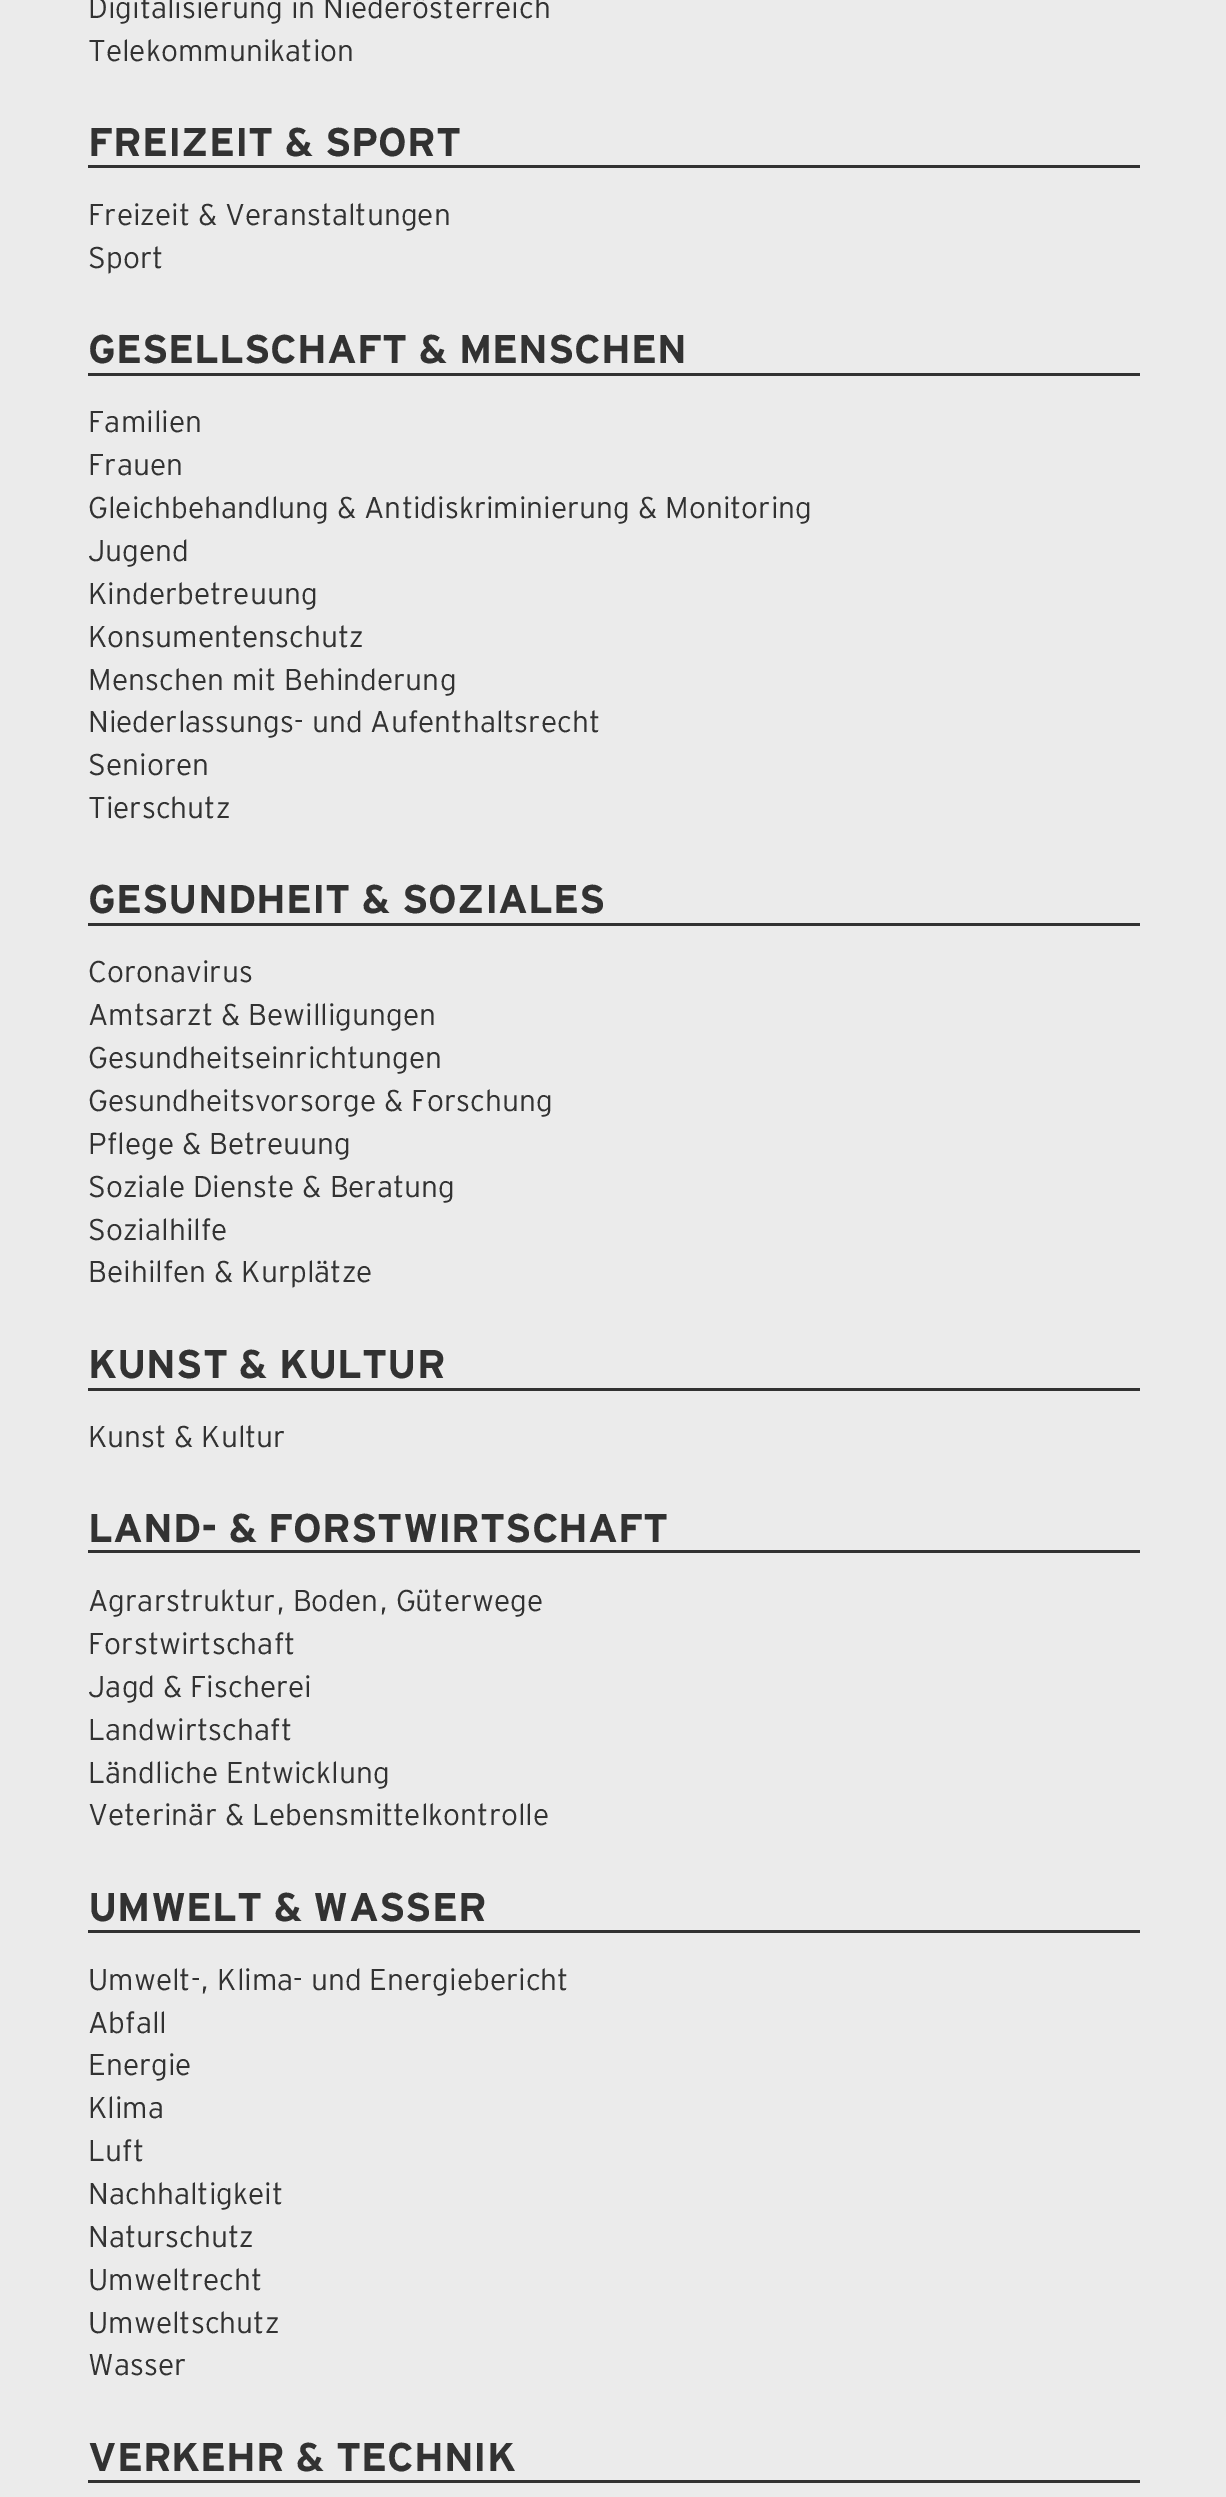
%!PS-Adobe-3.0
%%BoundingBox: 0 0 1226 2497
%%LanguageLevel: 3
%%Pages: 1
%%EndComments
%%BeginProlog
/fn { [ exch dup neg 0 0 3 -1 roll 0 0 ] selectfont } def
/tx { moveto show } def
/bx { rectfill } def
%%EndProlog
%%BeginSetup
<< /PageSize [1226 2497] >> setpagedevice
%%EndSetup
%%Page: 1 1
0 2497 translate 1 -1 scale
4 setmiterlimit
0.922 setgray
0 0 1226 2497 bx
/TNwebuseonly-Light 30 fn
0.196 setgray
(Digitalisierung in Niederösterreich) 88 18 tx
(Telekommunikation) 88 61 tx
88 165 1052 3 bx
/TNwebuseonly-Bold 40 fn
(FREIZEIT & SPORT) 88 156 tx
/TNwebuseonly-Light 30 fn
(Freizeit & Veranstaltungen) 88 225 tx
(Sport) 88 268 tx
88 373 1052 3 bx
/TNwebuseonly-Bold 40 fn
(GESELLSCHAFT & MENSCHEN) 88 363 tx
/TNwebuseonly-Light 30 fn
(Familien) 88 432 tx
(Frauen) 88 475 tx
(Gleichbehandlung & Antidiskriminierung & Monitoring) 88 518 tx
(Jugend) 88 561 tx
(Kinderbetreuung) 88 604 tx
(Konsumentenschutz) 88 647 tx
(Menschen mit Behinderung) 88 690 tx
(Niederlassungs- und Aufenthaltsrecht) 88 732 tx
(Senioren) 88 775 tx
(Tierschutz) 88 818 tx
88 923 1052 3 bx
/TNwebuseonly-Bold 40 fn
(GESUNDHEIT & SOZIALES) 88 913 tx
/TNwebuseonly-Light 30 fn
(Coronavirus) 88 982 tx
(Amtsarzt & Bewilligungen) 88 1025 tx
(Gesundheitseinrichtungen) 88 1068 tx
(Gesundheitsvorsorge & Forschung) 88 1111 tx
(Pflege & Betreuung) 88 1154 tx
(Soziale Dienste & Beratung) 88 1197 tx
(Sozialhilfe) 88 1240 tx
(Beihilfen & Kurplätze) 88 1282 tx
88 1388 1052 3 bx
/TNwebuseonly-Bold 40 fn
(KUNST & KULTUR) 88 1378 tx
/TNwebuseonly-Light 30 fn
(Kunst & Kultur) 88 1447 tx
88 1550 1052 3 bx
/TNwebuseonly-Bold 40 fn
(LAND- & FORSTWIRTSCHAFT) 88 1542 tx
/TNwebuseonly-Light 30 fn
(Agrarstruktur, Boden, Güterwege) 88 1611 tx
(Forstwirtschaft) 88 1654 tx
(Jagd & Fischerei) 88 1697 tx
(Landwirtschaft) 88 1740 tx
(Ländliche Entwicklung) 88 1783 tx
(Veterinär & Lebensmittelkontrolle) 88 1825 tx
88 1930 1052 3 bx
/TNwebuseonly-Bold 40 fn
(UMWELT & WASSER) 88 1921 tx
/TNwebuseonly-Light 30 fn
(Umwelt-, Klima- und Energiebericht) 88 1990 tx
(Abfall) 88 2033 tx
(Energie) 88 2075 tx
(Klima) 88 2118 tx
(Luft) 88 2161 tx
(Nachhaltigkeit) 88 2204 tx
(Naturschutz) 88 2247 tx
(Umweltrecht) 88 2290 tx
(Umweltschutz) 88 2333 tx
(Wasser) 88 2375 tx
88 2480 1052 3 bx
/TNwebuseonly-Bold 40 fn
(VERKEHR & TECHNIK) 88 2471 tx
showpage
%%EOF
